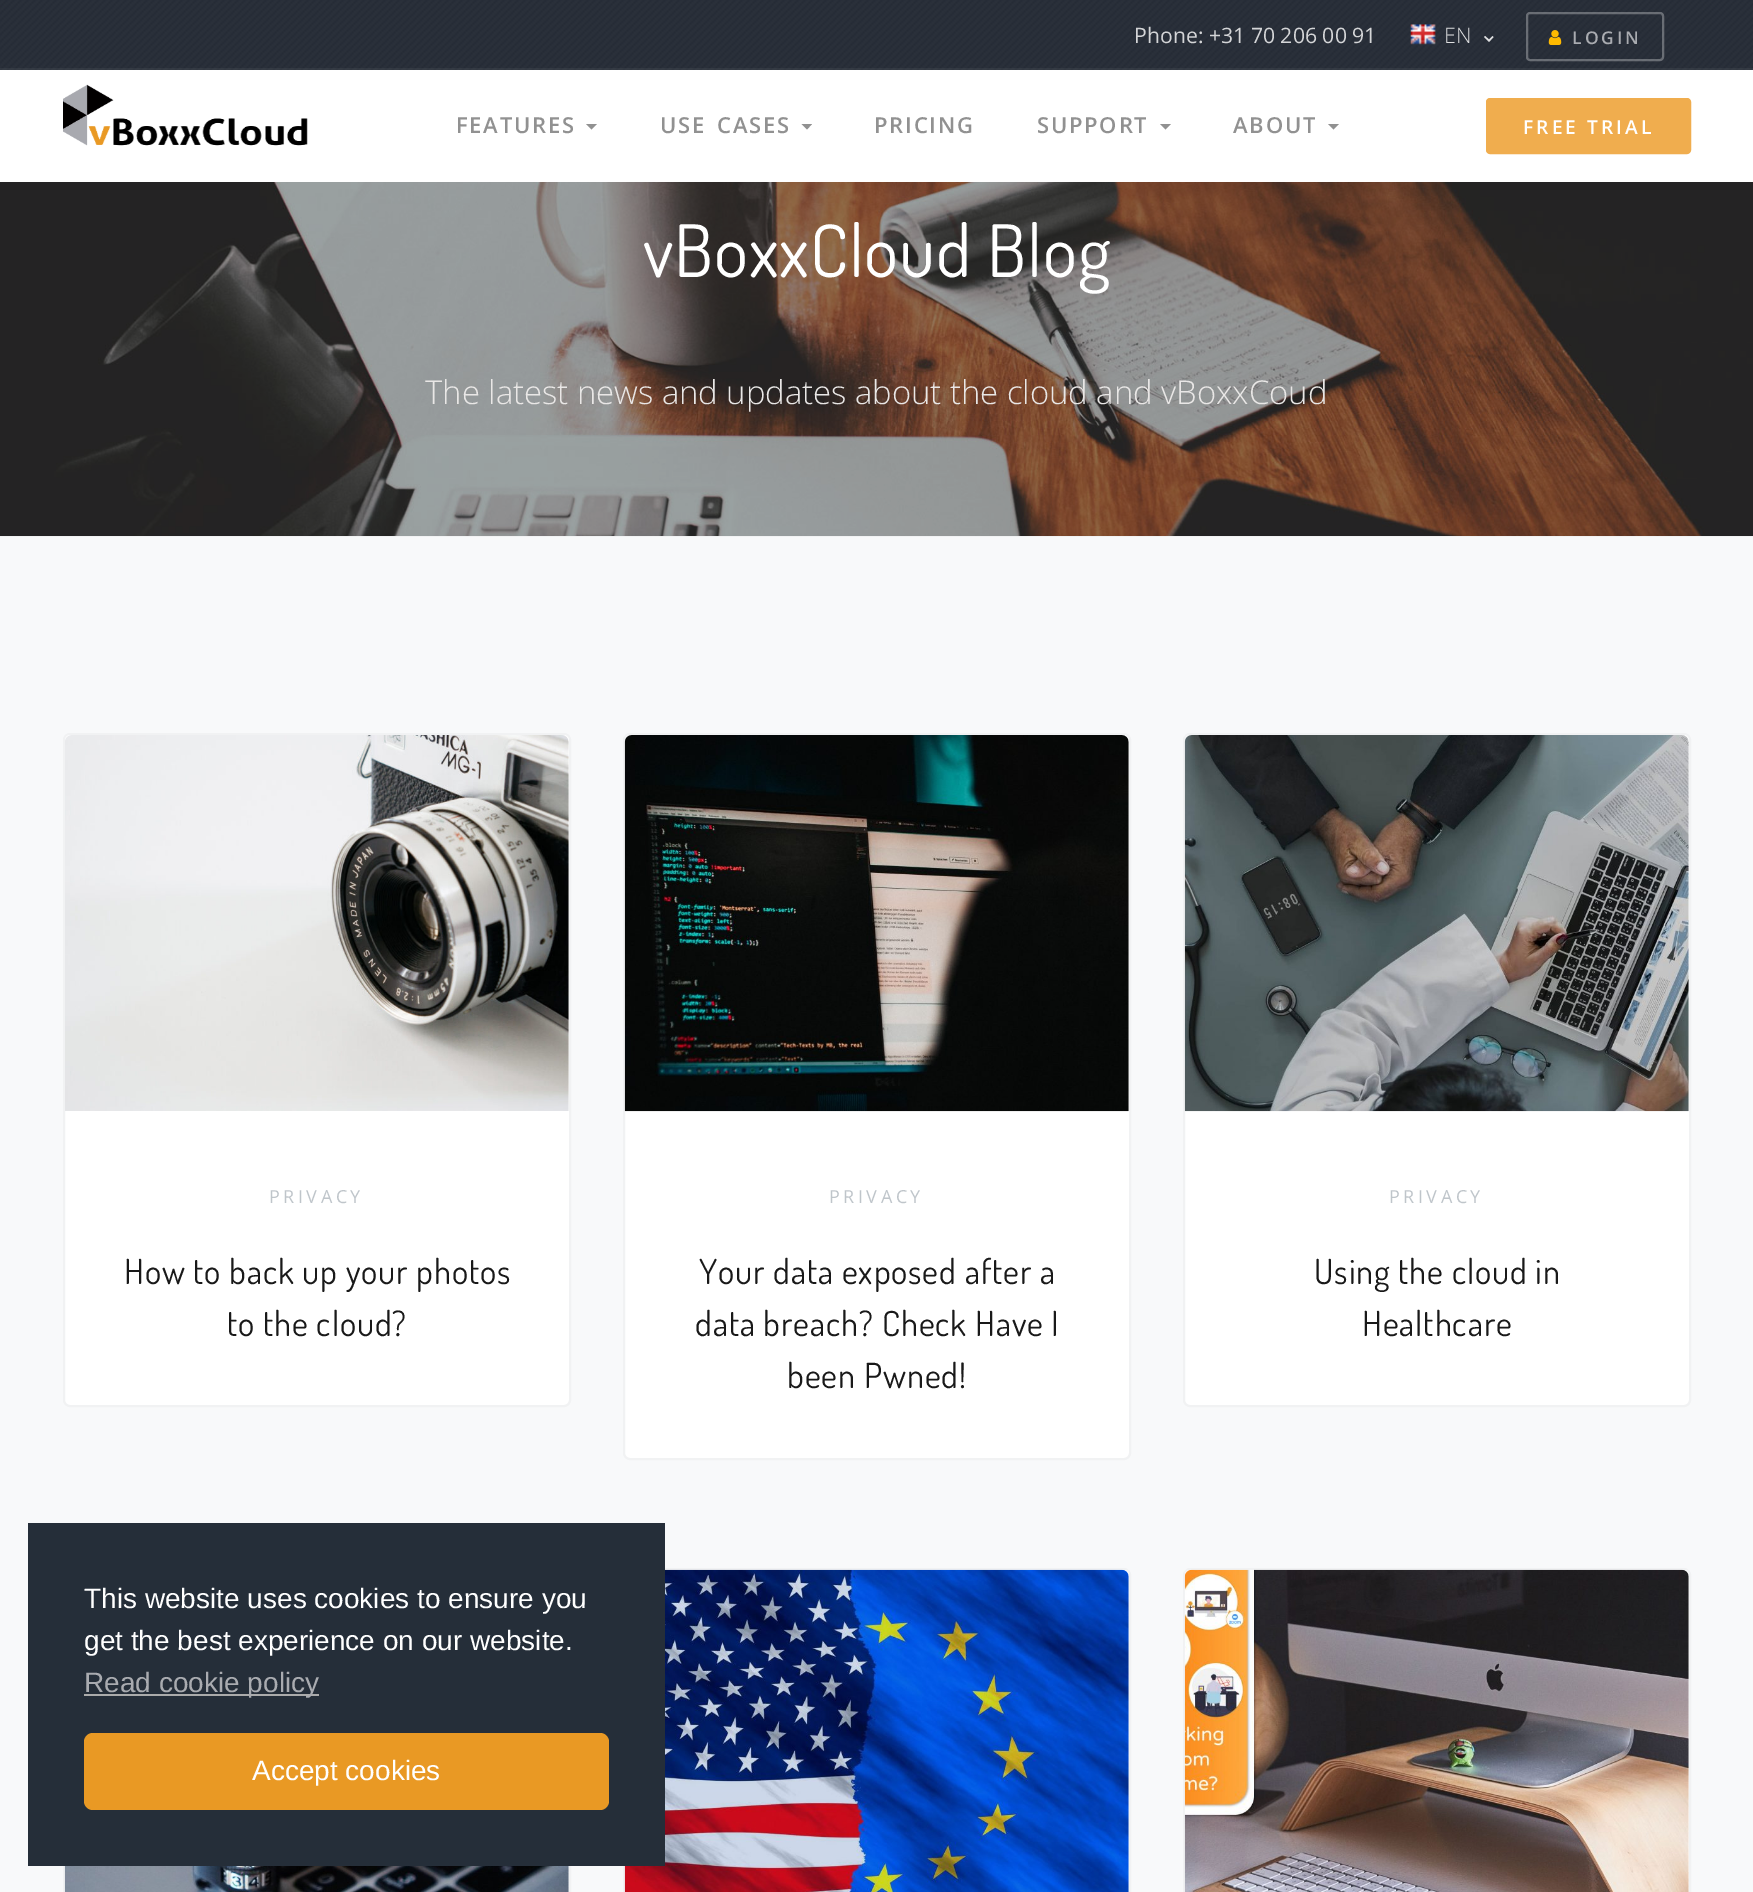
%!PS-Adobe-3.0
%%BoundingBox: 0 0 1753 1892
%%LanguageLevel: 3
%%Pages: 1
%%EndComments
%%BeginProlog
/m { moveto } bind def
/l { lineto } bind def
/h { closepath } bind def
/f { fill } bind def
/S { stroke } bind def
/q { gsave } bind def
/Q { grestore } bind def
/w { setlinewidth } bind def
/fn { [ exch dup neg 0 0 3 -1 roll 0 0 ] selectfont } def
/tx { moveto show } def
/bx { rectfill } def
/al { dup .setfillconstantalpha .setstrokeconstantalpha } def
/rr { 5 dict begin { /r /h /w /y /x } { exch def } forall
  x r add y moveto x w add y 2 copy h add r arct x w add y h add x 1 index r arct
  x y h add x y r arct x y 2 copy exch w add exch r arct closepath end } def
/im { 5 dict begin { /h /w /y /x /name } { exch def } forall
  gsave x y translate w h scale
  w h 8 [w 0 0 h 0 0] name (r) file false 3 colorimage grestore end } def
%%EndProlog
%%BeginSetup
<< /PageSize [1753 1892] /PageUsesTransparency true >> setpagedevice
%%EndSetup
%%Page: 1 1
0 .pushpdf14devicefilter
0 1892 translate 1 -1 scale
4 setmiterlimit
1 setgray
0 0 1753 1892 bx
(image0.raw) 0 0 1753 70 im
0.05 al
0 68 1753 2 bx
/OpenSans-Regular 21.25 fn
1 al
0.831 0.835 0.843 setrgbcolor
(Phone: +31 70 206 00 91) 1134 43 tx
(image1.raw) 1410 24 26 21 im
/OpenSans-Light 21.25 fn
0.875 0.878 0.882 setrgbcolor
(EN) 1444 43 tx
1493.5 37 m 1489 42 l 1489 39.5 l 1492.5 36 l h f
0.85 al
1 setgray
1489 42 m 1484 37 l 1485 36 l 1489 39.5 l h f
0.3 al
2 w
1527 13 136 47 3 rr S
1 al
(image2.raw) 1548 30 14 15 im
/OpenSans-SemiBold 17.5 fn
0.663 0.671 0.69 setrgbcolor
1572 44 m 3 0 (LOGIN) ashow
(image3.raw) 63 84 245 62 im
/OpenSans-SemiBold 22 fn
0.569 setgray
456 133 m 1.75 0 (FEATURES) ashow
586 124 m 597 124 l 591.5 129.5 l h f
660 133 m 4 0 32 1.75 0 (USE CASES) awidthshow
801.5 124 m 812 124 l 807 129.5 l h f
874 133 m 1.75 0 (PRICING) ashow
1037 133 m 1.75 0 (SUPPORT) ashow
1160 124 m 1171 124 l 1165.5 129.5 l h f
1233 133 m 1.75 0 (ABOUT) ashow
1328 124 m 1339 124 l 1333.5 129.5 l h f
0.941 0.678 0.306 setrgbcolor
1487 99 203 54 3 rr q f Q
S
/OpenSans-SemiBold 19.25 fn
1 setgray
1523 134 m 3 0 (FREE TRIAL) ashow
(image4.raw) 0 182 1753 354 im
0.945 0.949 0.953 setrgbcolor
0 536 1753 1 bx
/Dosis-Regular 72.25 fn
1 setgray
643 277 m 0.9 0 (vBoxxCloud Blog) ashow
/OpenSans-Light 32.8 fn
0.914 0.906 0.902 setrgbcolor
(The latest news and updates about the cloud and vBoxxCoud) 425 404 tx
0.973 0.976 0.98 setrgbcolor
0 537 1753 1355 bx
1 setgray
64 734 506 672 6 rr q f Q
0.945 0.949 0.953 setrgbcolor
S
(image5.raw) 65 735 504 376 im
/OpenSans-Regular 18 fn
0.749 0.773 0.792 setrgbcolor
269 1203 m 3.5 0 (PRIVACY) ashow
/Dosis-Regular 34.5 fn
0.098 setgray
124 1284 m 0.9 0 (How to back up your photos) ashow
227 1336 m 0.9 0 (to the cloud?) ashow
1 setgray
624 734 506 725 6 rr q f Q
0.945 0.949 0.953 setrgbcolor
S
(image6.raw) 624 735 505 377 im
/OpenSans-Regular 18 fn
0.749 0.773 0.792 setrgbcolor
829 1203 m 3.5 0 (PRIVACY) ashow
/Dosis-Regular 34.5 fn
0.098 setgray
699 1284 m 0.9 0 (Your data exposed after a) ashow
695 1336 m 0.9 0 (data breach? Check Have I) ashow
787 1388 m 0.9 0 (been Pwned!) ashow
1 setgray
1184 734 506 672 6 rr q f Q
0.945 0.949 0.953 setrgbcolor
S
(image7.raw) 1184 735 505 377 im
/OpenSans-Regular 18 fn
0.749 0.773 0.792 setrgbcolor
1389 1203 m 3.5 0 (PRIVACY) ashow
/Dosis-Regular 34.5 fn
0.098 setgray
1314 1284 m 0.9 0 (Using the cloud in) ashow
1362 1336 m 0.9 0 (Healthcare) ashow
1 setgray
568 1866 1 26 bx
0.945 0.949 0.953 setrgbcolor
64 1569 506 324 rectstroke
(image8.raw) 64 1866 505 26 im
1 setgray
624 1569 506 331 6 rr q f Q
0.945 0.949 0.953 setrgbcolor
S
(image9.raw) 624 1569 505 323 im
1 setgray
1184 1569 506 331 6 rr q f Q
0.945 0.949 0.953 setrgbcolor
S
(image10.raw) 1184 1569 505 323 im
0.145 0.18 0.224 setrgbcolor
28 1523 637 343 bx
/LiberationSans-Regular 28 fn
1 setgray
(This website uses cookies to ensure you) 84 1608 tx
(get the best experience on our website.) 84 1650 tx
0.671 setgray
84 1694 235 2 bx
0.663 0.671 0.69 setrgbcolor
(Read cookie policy) 84 1692 tx
0.914 0.6 0.141 setrgbcolor
84 1733 525 77 9 rr f
1 setgray
(Accept cookies) 252 1780 tx
.poppdf14devicefilter showpage
%%EOF
